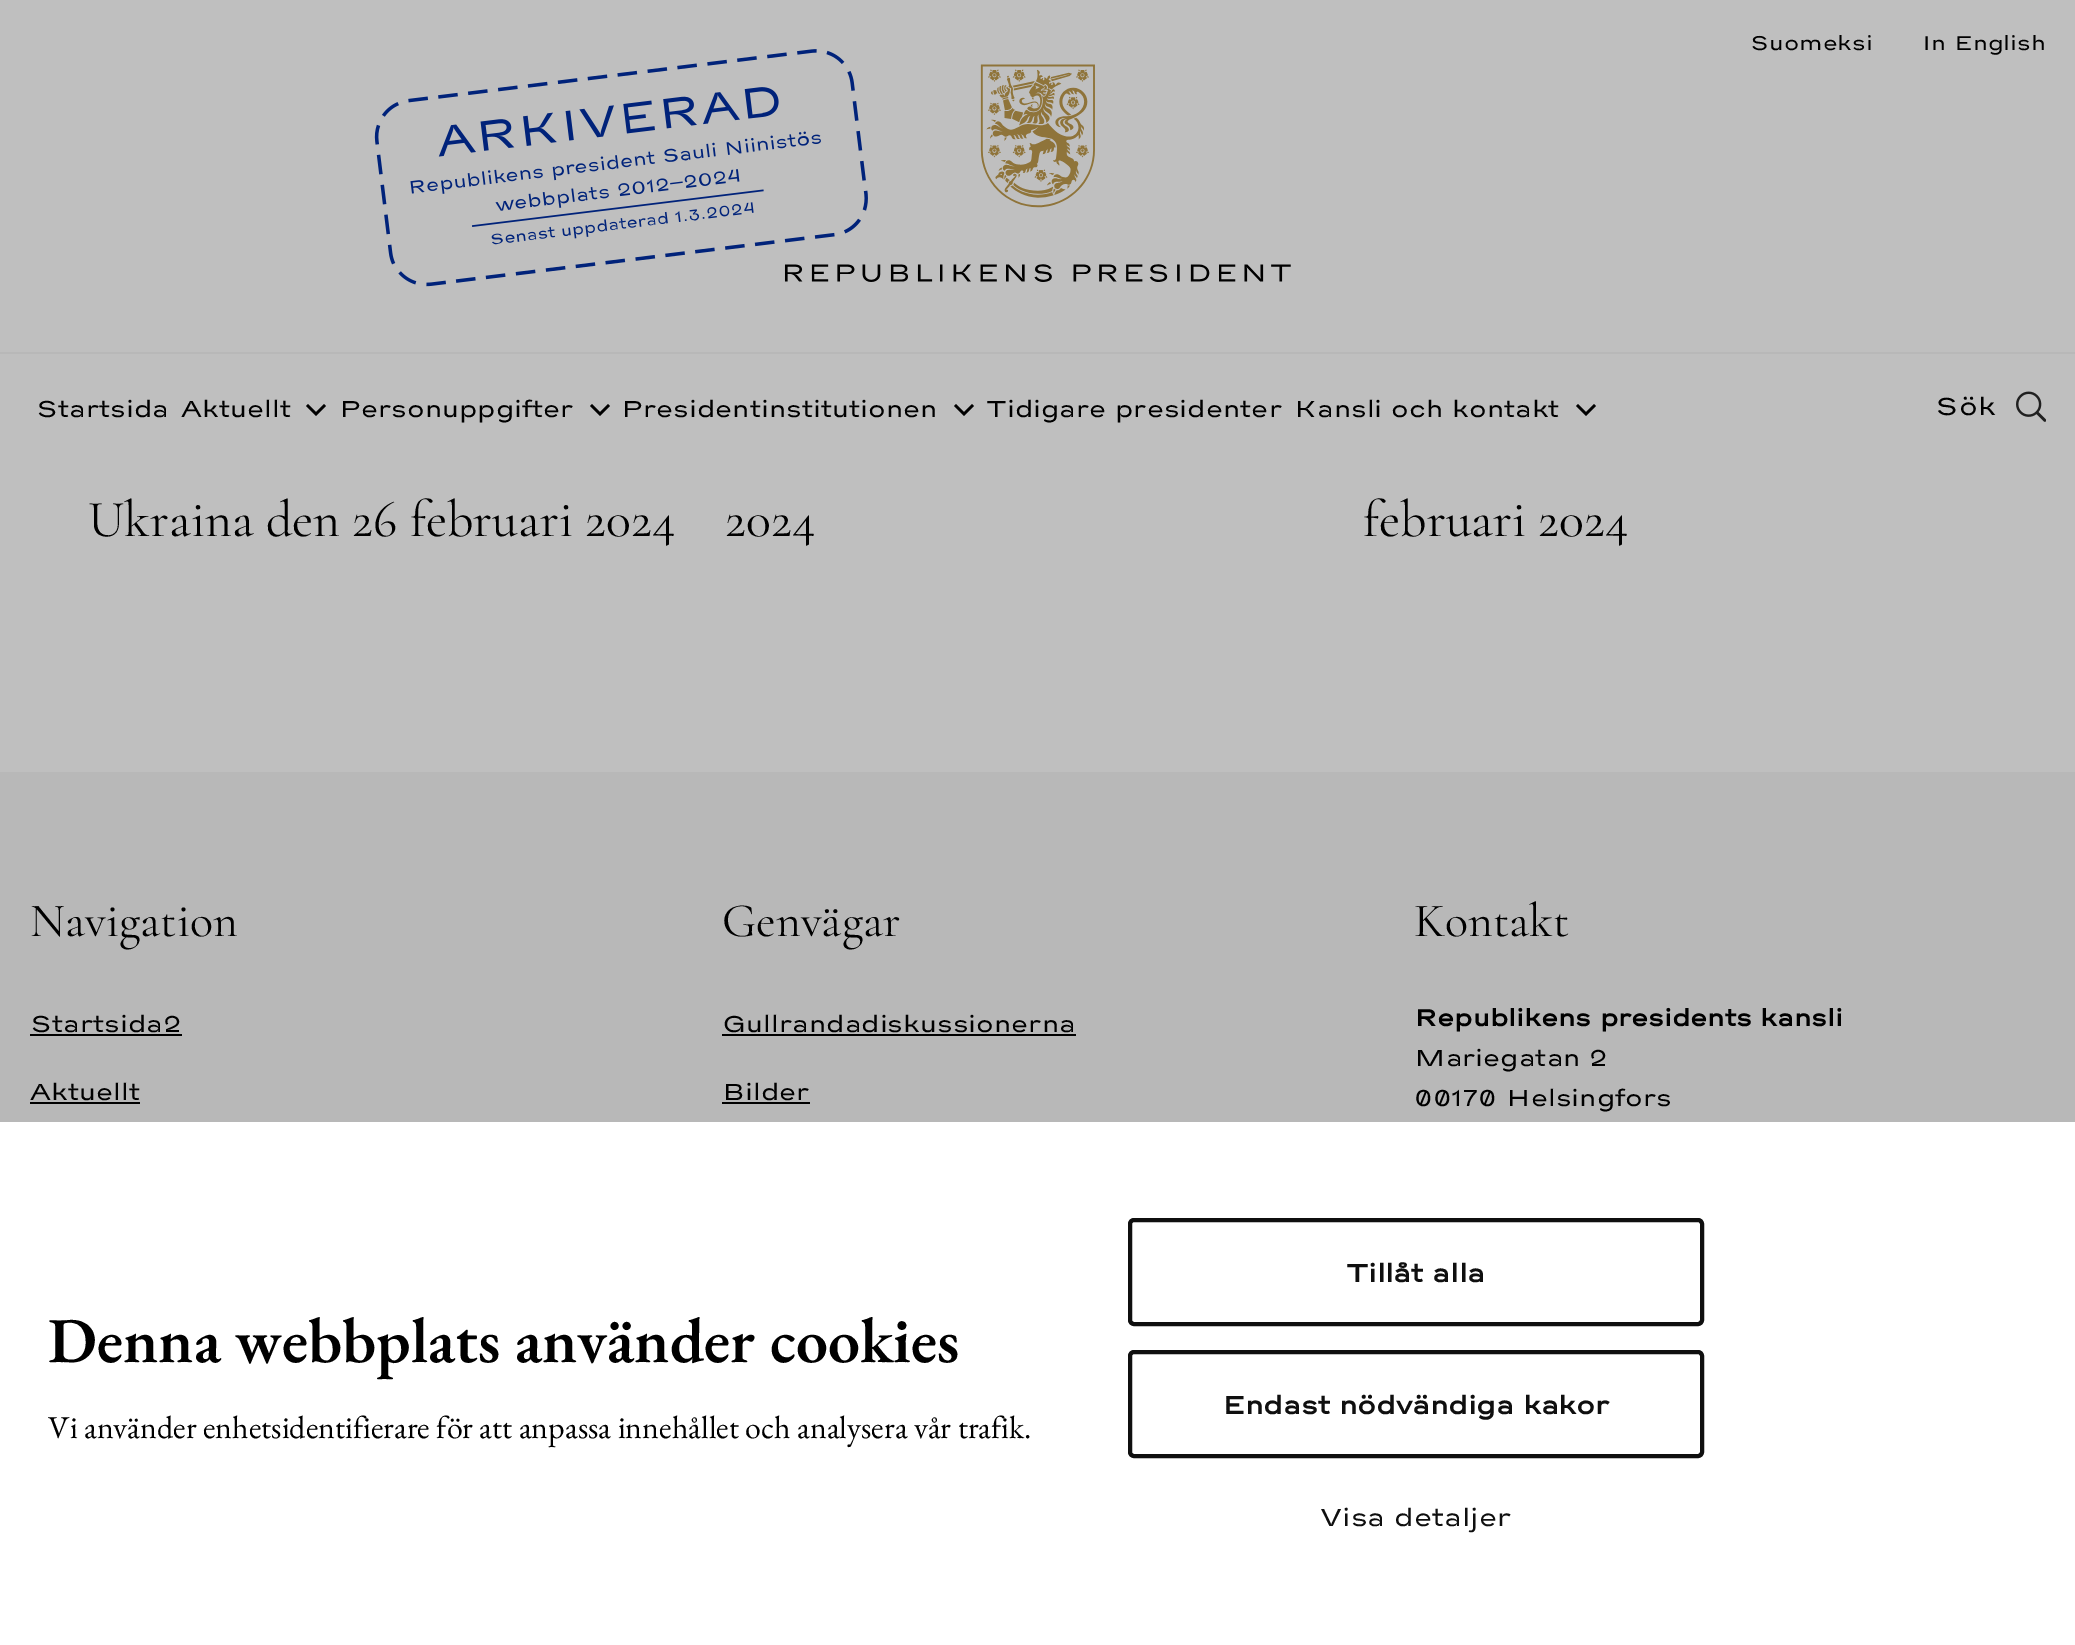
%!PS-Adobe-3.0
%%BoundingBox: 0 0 2075 1645
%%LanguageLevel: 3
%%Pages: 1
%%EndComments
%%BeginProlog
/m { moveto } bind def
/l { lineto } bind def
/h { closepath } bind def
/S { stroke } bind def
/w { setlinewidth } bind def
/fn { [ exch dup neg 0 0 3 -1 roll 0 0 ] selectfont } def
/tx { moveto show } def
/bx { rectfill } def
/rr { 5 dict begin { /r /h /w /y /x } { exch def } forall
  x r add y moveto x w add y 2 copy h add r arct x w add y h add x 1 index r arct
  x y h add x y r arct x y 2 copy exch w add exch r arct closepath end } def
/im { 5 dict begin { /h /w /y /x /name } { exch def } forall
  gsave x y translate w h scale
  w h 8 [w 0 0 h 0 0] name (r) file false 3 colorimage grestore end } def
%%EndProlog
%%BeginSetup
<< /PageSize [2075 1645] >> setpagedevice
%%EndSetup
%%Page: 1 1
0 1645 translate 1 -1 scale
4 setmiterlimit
0.749 setgray
0 0 2075 1645 bx
/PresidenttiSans-Regular 26 fn
0 setgray
(Suomeksi) 1750 50 tx
(In English) 1922 50 tx
0.722 setgray
0 352 2075 2 bx
(image1.raw) 784 64 507 218 im
(image0.raw) 374 49 494 238 im
/PresidenttiSans-Regular 30 fn
0 setgray
(Startsida) 36 417 tx
(Aktuellt) 181 417 tx
324 404 m 326 406 l 316 416 l 306 406 l 308 404 l 316 412 l h eofill
(Personuppgifter) 339 417 tx
608 404 m 610 406 l 600 416 l 590 406 l 592 404 l 600 412 l h eofill
(Presidentinstitutionen) 621 417 tx
972 404 m 974 406 l 964 416 l 954 406 l 956 404 l 964 412 l h eofill
(Tidigare presidenter) 986 417 tx
(Kansli och kontakt) 1294 417 tx
1594 404 m 1596 406 l 1586 416 l 1576 406 l 1578 404 l 1586 412 l h eofill
/PresidenttiSans-Regular 32 fn
(Sök) 1935 415 tx
(image2.raw) 2016 391 30 31 im
/CormorantGaramond-Regular 52 fn
(Ukraina den 26 februari 2024) 88 536 tx
(2024) 725 536 tx
(februari 2024) 1363 536 tx
0.722 setgray
0 772 2075 350 bx
/CormorantGaramond-Regular 48 fn
0 setgray
(Navigation) 30 936 tx
/PresidenttiSans-Regular 30 fn
(Startsida2) 30 1032 tx
30 1034 152 2 bx
(Aktuellt) 30 1100 tx
30 1102 110 2 bx
/CormorantGaramond-Regular 48 fn
(Genvägar) 722 936 tx
/PresidenttiSans-Regular 30 fn
(Gullrandadiskussionerna) 722 1032 tx
722 1034 354 2 bx
(Bilder) 722 1100 tx
722 1102 88 2 bx
/CormorantGaramond-Regular 48 fn
(Kontakt) 1414 936 tx
/PresidenttiSans-Bold 30 fn
(Republikens presidents kansli) 1414 1026 tx
/PresidenttiSans-Regular 30 fn
(Mariegatan 2) 1414 1066 tx
(00170 Helsingfors) 1414 1106 tx
1 setgray
0 1122 2075 523 bx
/EBGaramond-SemiBold 64 fn
0 setgray
(Denna webbplats använder cookies) 48 1362 tx
/EBGaramond-Regular 32 fn
(Vi använder enhetsidentifierare för att anpassa innehållet och analysera vår trafik.) 48 1438 tx
0.059 setgray
4 w
1130 1220 572 104 4 rr S
/PresidenttiSans-Bold 32 fn
(Tillåt alla) 1346 1282 tx
1130 1352 572 104 4 rr S
(Endast nödvändiga kakor) 1222 1414 tx
/PresidenttiSans-Regular 32 fn
(Visa detaljer) 1320 1526 tx
showpage
%%EOF
